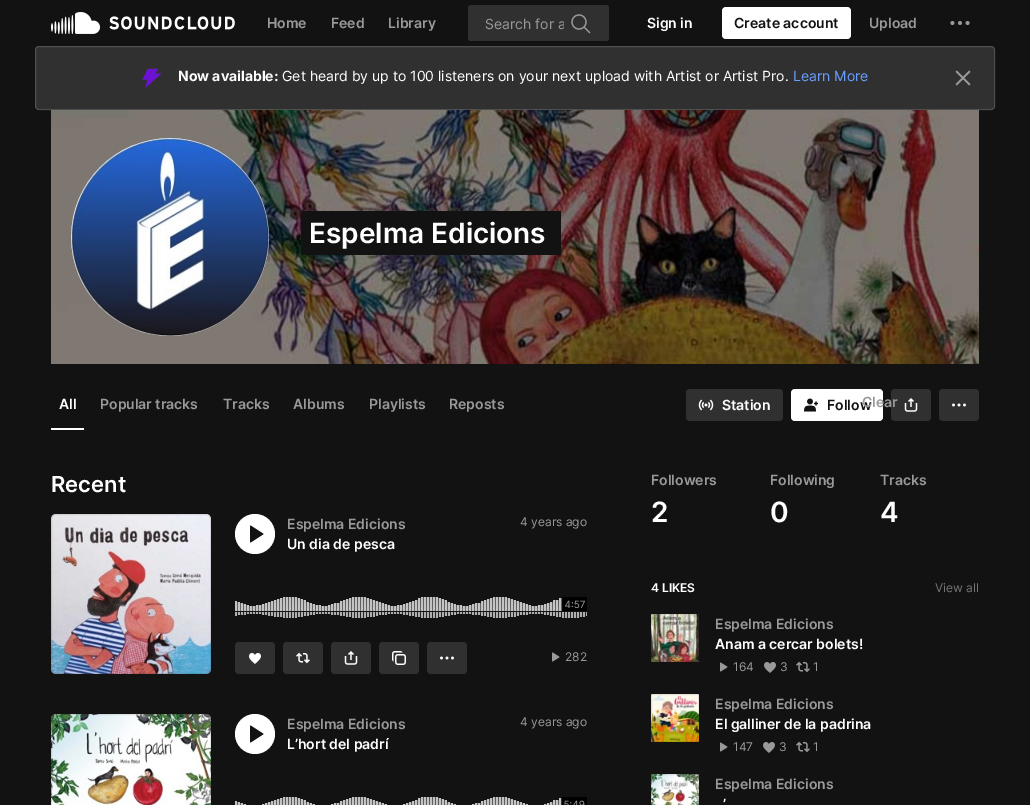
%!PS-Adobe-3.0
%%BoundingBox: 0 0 1030 805
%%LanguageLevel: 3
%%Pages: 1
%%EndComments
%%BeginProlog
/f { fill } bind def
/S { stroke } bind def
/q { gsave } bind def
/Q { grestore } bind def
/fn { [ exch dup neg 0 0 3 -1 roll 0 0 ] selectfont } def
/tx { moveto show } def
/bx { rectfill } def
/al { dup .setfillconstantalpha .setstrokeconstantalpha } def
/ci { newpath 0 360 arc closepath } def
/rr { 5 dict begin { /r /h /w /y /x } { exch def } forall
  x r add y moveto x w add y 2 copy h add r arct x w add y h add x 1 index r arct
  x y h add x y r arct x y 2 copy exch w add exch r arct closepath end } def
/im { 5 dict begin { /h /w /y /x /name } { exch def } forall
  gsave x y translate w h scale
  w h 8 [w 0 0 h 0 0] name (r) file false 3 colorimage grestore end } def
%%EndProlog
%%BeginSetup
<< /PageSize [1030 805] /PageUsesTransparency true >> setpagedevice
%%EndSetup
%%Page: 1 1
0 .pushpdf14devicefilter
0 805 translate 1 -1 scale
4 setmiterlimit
0.071 setgray
0 0 1030 805 bx
(image0.raw) 51 12 184 22 im
/Inter-SemiBold 14 fn
0.6 setgray
(Home) 267 28 tx
(Feed) 331 28 tx
(Library) 388 28 tx
0.188 setgray
468 5 141 36 3 rr f
q
485 15 79 17 rectclip
/Inter-Regular 14 fn
0.6 setgray
(Search for a) 485 29 tx
Q
(image1.raw) 571 14 20 20 im
1 setgray
(Sign in) 647 28 tx
722 7 129 32 4 rr f
0.071 setgray
(Create account) 734 28 tx
0.6 setgray
(Upload) 869 28 tx
(image2.raw) 950 21 20 4 im
0.188 setgray
35 46 960 64 4 rr f
0.15 al
1 setgray
35.5 46.5 959 63 3.5 rr S
1 al
(image3.raw) 142 68 20 20 im
/Inter-Bold 14 fn
(Now available:) 178 81 tx
/Inter-Regular 14 fn
(Get heard by up to 100 listeners on your next upload with Artist or Artist Pro.) 282 81 tx
0.412 0.624 1 setrgbcolor
(Learn More) 793 81 tx
(image4.raw) 955 70 16 16 im
(image5.raw) 51 110 928 254 im
(image6.raw) 71 138 198 198 im
0.071 setgray
301 211 260 44 bx
/Inter-SemiBold 28 fn
1 setgray
(Espelma Edicions) 309 243 tx
51 428 33 2 bx
/Inter-SemiBold 14 fn
(All) 59 409 tx
0.6 setgray
(Popular tracks) 100 409 tx
(Tracks) 223 409 tx
(Albums) 293 409 tx
(Playlists) 369 409 tx
(Reposts) 449 409 tx
0.188 setgray
686 389 97 32 4 rr f
(image7.raw) 698 399 16 12 im
1 setgray
(Station) 722 410 tx
791 389 92 32 4 rr f
(image8.raw) 804 398 14 14 im
0.071 setgray
(Follow) 827 410 tx
0.188 setgray
891 389 40 32 4 rr f
(image9.raw) 904 398 14 14 im
939 389 40 32 4 rr f
(image10.raw) 952 403 14 4 im
/Inter-SemiBold 22 fn
1 setgray
(Recent) 51 492 tx
(image11.raw) 51 514 160 160 im
0.1 al
0.071 setgray
51.5 514.5 159 159 4.5 rr S
1 al
1 setgray
255 534 20 ci f
(image12.raw) 250 525 14 18 im
/Inter-SemiBold 14 fn
0.6 setgray
(Espelma Edicions) 287 529 tx
1 setgray
(Un dia de pesca) 287 549 tx
/Inter-Regular 12 fn
0.6 setgray
(4 years ago) 520 526 tx
(image13.raw) 235 597 352 21 im
(image14.raw) 562 597 25 14 im
0.188 setgray
235 642 40 32 4 rr f
(image15.raw) 249 653 12 11 im
283 642 40 32 4 rr f
(image16.raw) 296 652 14 12 im
331 642 40 32 4 rr f
(image9.raw) 344 651 14 14 im
379 642 40 32 4 rr f
(image17.raw) 392 651 14 14 im
427 642 40 32 4 rr f
(image10.raw) 440 656 14 4 im
(image18.raw) 552 652 8 10 im
0.6 setgray
(282) 565 661 tx
(image19.raw) 51 714 160 91 im
0.1 al
0.071 setgray
51.5 714.5 159 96 4.5 rr S
1 al
1 setgray
255 734 20 ci f
(image12.raw) 250 725 14 18 im
/Inter-SemiBold 14 fn
0.6 setgray
(Espelma Edicions) 287 729 tx
1 setgray
(L’hort del padrí) 287 749 tx
/Inter-Regular 12 fn
0.6 setgray
(4 years ago) 520 726 tx
(image20.raw) 235 797 327 8 im
(image21.raw) 561 797 26 8 im
/Inter-SemiBold 14 fn
(Followers) 651 485 tx
/Inter-SemiBold 28 fn
1 setgray
(2) 651 522 tx
/Inter-SemiBold 14 fn
0.6 setgray
(Following) 770 485 tx
/Inter-SemiBold 28 fn
1 setgray
(0) 770 522 tx
/Inter-SemiBold 14 fn
0.6 setgray
(Tracks) 880 485 tx
/Inter-SemiBold 28 fn
1 setgray
(4) 880 522 tx
/Inter-SemiBold 12 fn
(4 LIKES) 651 592 tx
/Inter-Regular 12 fn
0.459 setgray
(View all) 935 592 tx
(image22.raw) 651 614 48 48 im
0.1 al
0.071 setgray
651.5 614.5 47 47 rectstroke
/Inter-SemiBold 14 fn
1 al
0.6 setgray
(Espelma Edicions) 715 629 tx
1 setgray
(Anam a cercar bolets!) 715 649 tx
(image18.raw) 720 662 8 10 im
/Inter-Regular 12 fn
0.6 setgray
(164) 733 671 tx
(image23.raw) 764 662 12 11 im
(3) 780 671 tx
(image24.raw) 796 661 14 12 im
(1) 813 671 tx
(image25.raw) 651 694 48 48 im
0.1 al
0.071 setgray
651.5 694.5 47 47 rectstroke
/Inter-SemiBold 14 fn
1 al
0.6 setgray
(Espelma Edicions) 715 709 tx
1 setgray
(El galliner de la padrina) 715 729 tx
(image18.raw) 720 742 8 10 im
/Inter-Regular 12 fn
0.6 setgray
(147) 733 751 tx
(image23.raw) 763 742 12 11 im
(3) 779 751 tx
(image24.raw) 796 741 14 12 im
(1) 813 751 tx
(image26.raw) 651 774 48 31 im
0.1 al
0.071 setgray
651.5 774.5 47 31 rectstroke
/Inter-SemiBold 14 fn
1 al
0.6 setgray
(Espelma Edicions) 715 789 tx
1 setgray
(’) 723 809 tx
0.6 setgray
(Clear) 862 407 tx
.poppdf14devicefilter showpage
%%EOF
